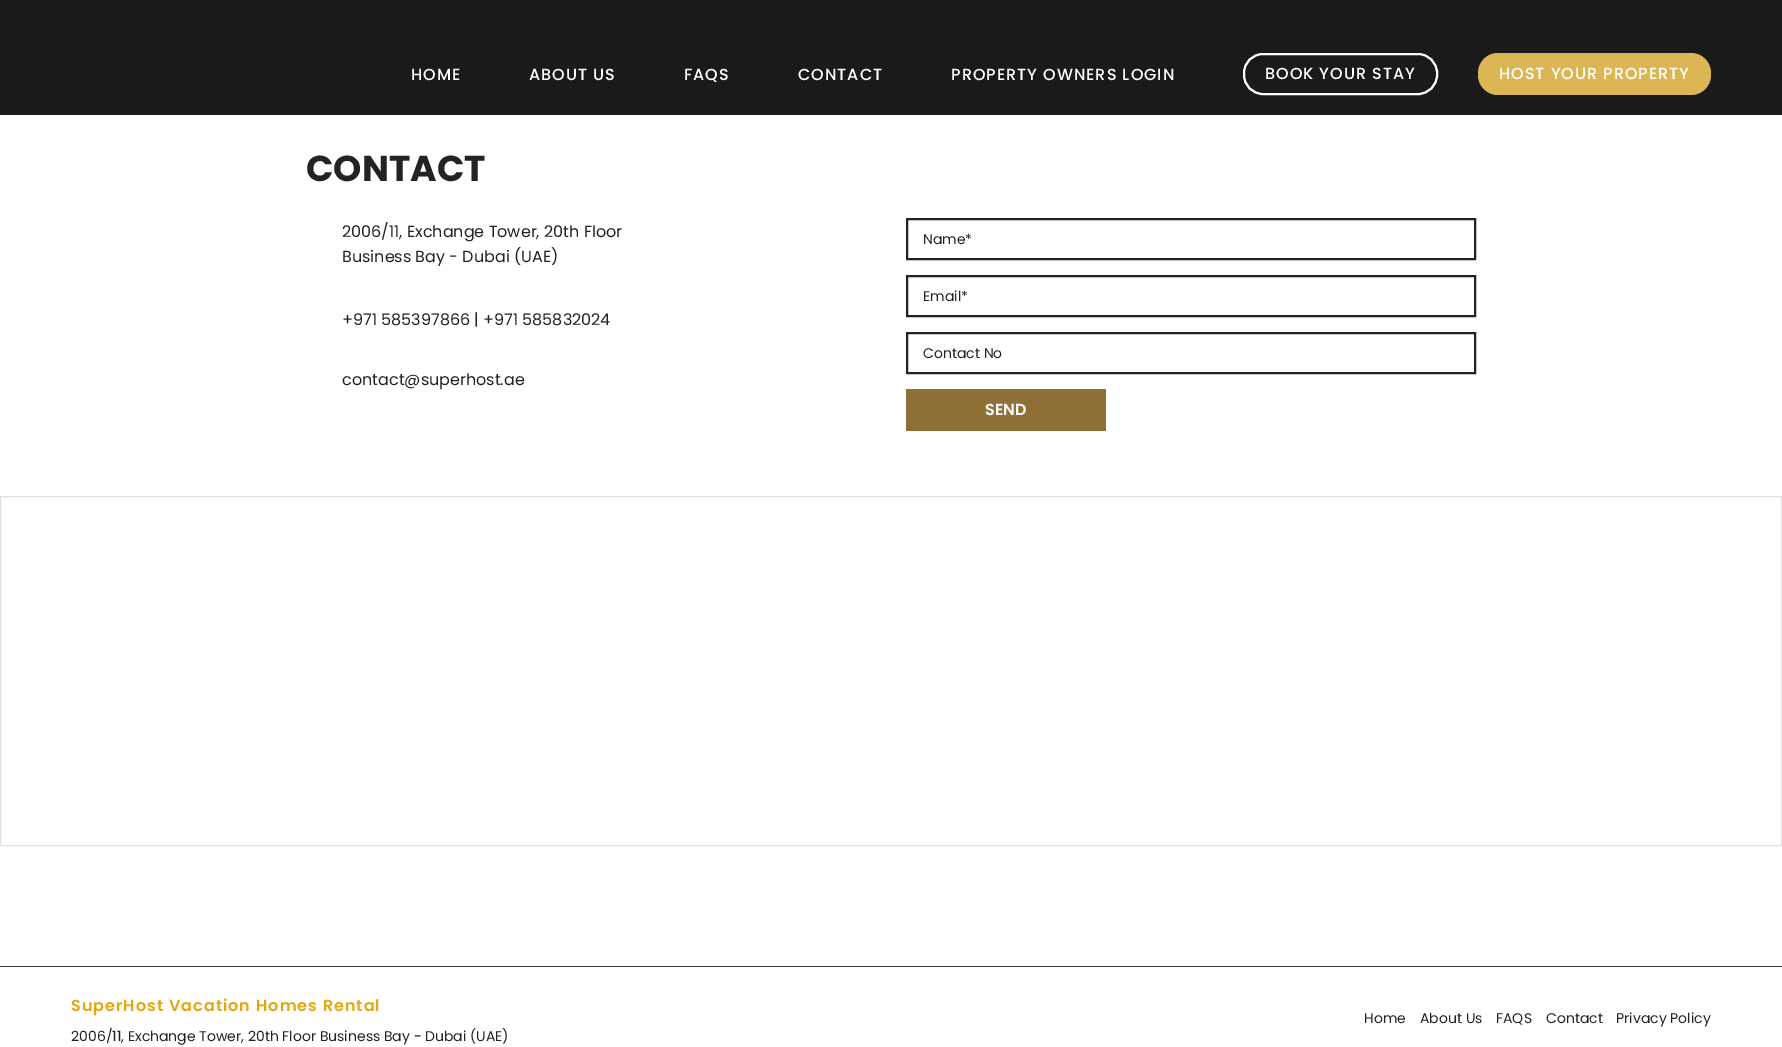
%!PS-Adobe-3.0
%%BoundingBox: 0 0 1782 1047
%%LanguageLevel: 3
%%Pages: 1
%%EndComments
%%BeginProlog
/m { moveto } bind def
/f { fill } bind def
/S { stroke } bind def
/w { setlinewidth } bind def
/fn { [ exch dup neg 0 0 3 -1 roll 0 0 ] selectfont } def
/tx { moveto show } def
/bx { rectfill } def
/rr { 5 dict begin { /r /h /w /y /x } { exch def } forall
  x r add y moveto x w add y 2 copy h add r arct x w add y h add x 1 index r arct
  x y h add x y r arct x y 2 copy exch w add exch r arct closepath end } def
%%EndProlog
%%BeginSetup
<< /PageSize [1782 1047] >> setpagedevice
%%EndSetup
%%Page: 1 1
0 1047 translate 1 -1 scale
4 setmiterlimit
1 setgray
0 0 1782 1047 bx
0.102 setgray
0 0 1782 115 bx
/Poppins-Medium 16 fn
1 setgray
411 80 m 1 0 (HOME) ashow
529 80 m 1 0 (ABOUT US) ashow
684 80 m 1 0 (FAQS) ashow
798 80 m 1 0 (CONTACT) ashow
951 80 m 1 0 (PROPERTY OWNERS LOGIN) ashow
2 w
1244 54 193 40 19 rr S
1265 79 m 1 0 (BOOK YOUR STAY) ashow
0.863 0.714 0.329 setrgbcolor
1478 53 233 42 20 rr f
1 setgray
1499 79 m 1 0 (HOST YOUR PROPERTY) ashow
/Poppins-Bold 36 fn
0.137 setgray
(CONTACT) 306 181 tx
/Poppins-Regular 16 fn
(2006/11, Exchange Tower, 20th Floor) 342 237 tx
(Business Bay - Dubai \(UAE\)) 342 262 tx
(+971 585397866 | +971 585832024) 342 325 tx
(contact@superhost.ae) 342 385 tx
907 219 568 40 rectstroke
/Poppins-Regular 14 fn
(Name*) 923 244 tx
907 276 568 40 rectstroke
(Email*) 923 301 tx
907 333 568 40 rectstroke
(Contact No) 923 358 tx
0.557 0.439 0.216 setrgbcolor
906 389 200 42 bx
/Poppins-SemiBold 16 fn
1 setgray
(SEND) 985 415 tx
0.882 setgray
1 w
0.5 496.5 1781 349 rectstroke
0.208 setgray
0 966 1782 1 bx
0.898 0.651 0.055 setrgbcolor
71 1011 m 1 0 (SuperHost Vacation Homes Rental) ashow
/Poppins-Regular 14 fn
0.137 setgray
(2006/11, Exchange Tower, 20th Floor Business Bay - Dubai \(UAE\)) 71 1041 tx
(Home) 1364 1023 tx
(About Us) 1420 1023 tx
(FAQS) 1496 1023 tx
(Contact) 1546 1023 tx
(Privacy Policy) 1616 1023 tx
showpage
%%EOF
